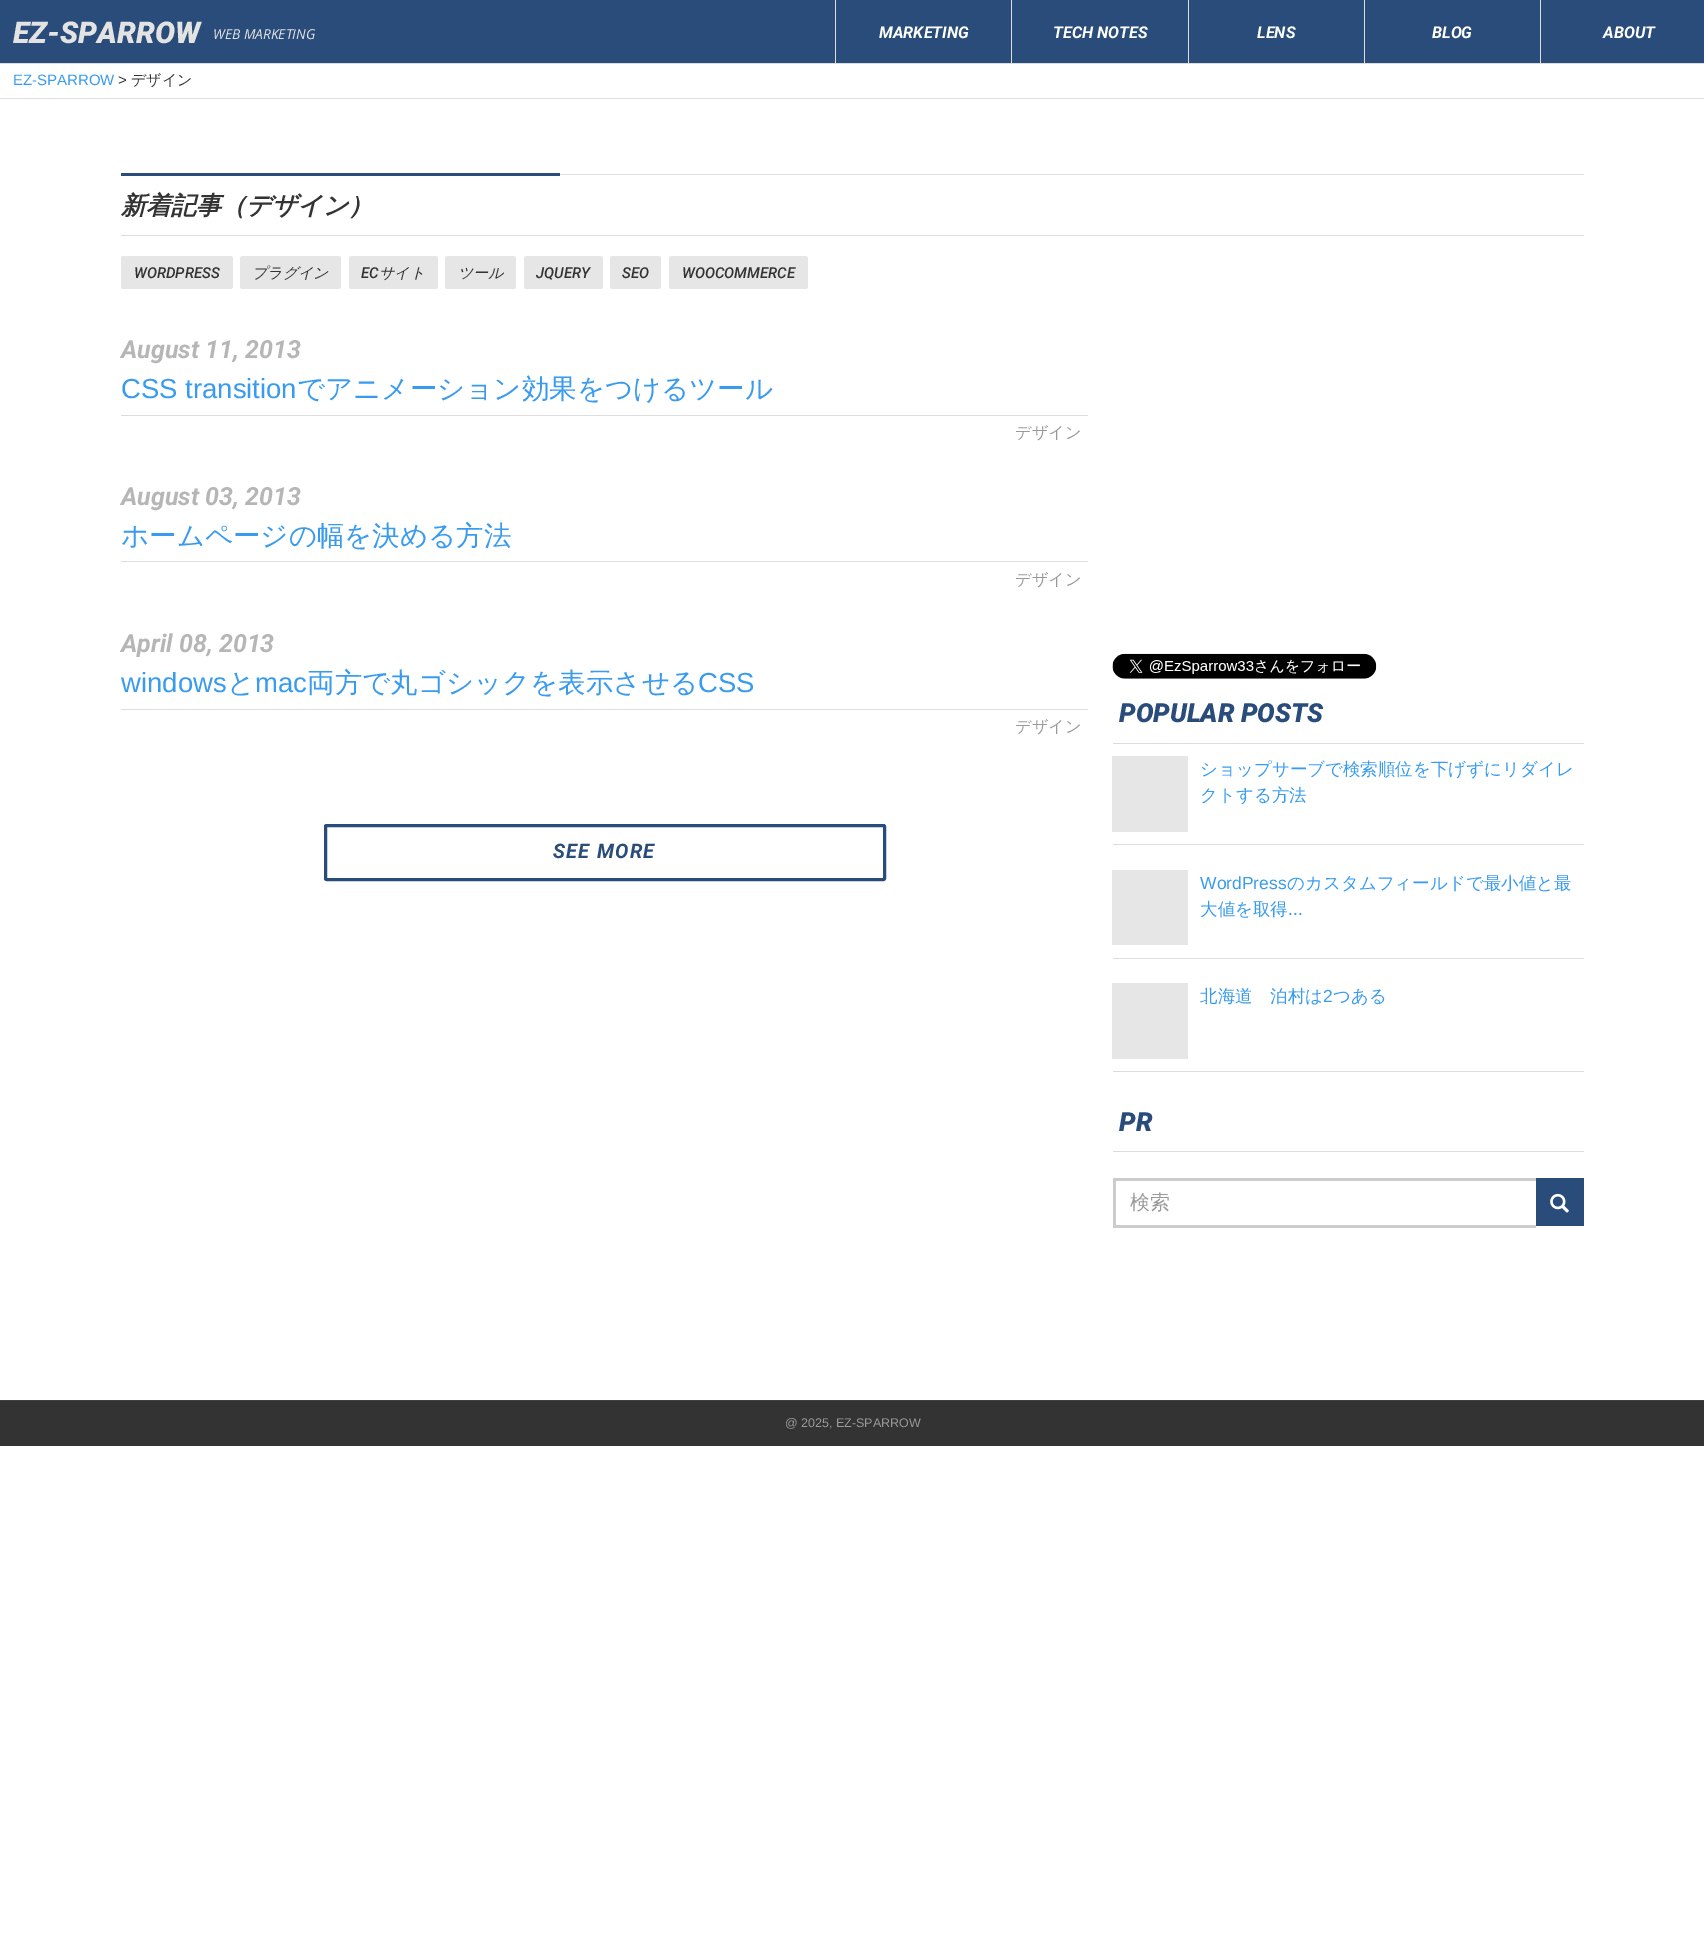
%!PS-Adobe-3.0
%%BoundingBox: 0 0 1704 1955
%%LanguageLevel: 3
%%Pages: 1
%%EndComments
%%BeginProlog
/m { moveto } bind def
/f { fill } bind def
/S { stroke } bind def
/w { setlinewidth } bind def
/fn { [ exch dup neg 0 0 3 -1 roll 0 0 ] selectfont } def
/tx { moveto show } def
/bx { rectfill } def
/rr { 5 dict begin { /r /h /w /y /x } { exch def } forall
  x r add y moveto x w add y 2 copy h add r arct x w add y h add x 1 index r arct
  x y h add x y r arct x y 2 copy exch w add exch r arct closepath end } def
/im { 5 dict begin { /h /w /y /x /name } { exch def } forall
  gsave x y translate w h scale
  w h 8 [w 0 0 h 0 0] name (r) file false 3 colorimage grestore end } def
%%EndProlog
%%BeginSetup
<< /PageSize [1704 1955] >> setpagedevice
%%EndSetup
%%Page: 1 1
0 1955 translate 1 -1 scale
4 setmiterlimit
1 setgray
0 0 1704 1955 bx
0.161 0.298 0.478 setrgbcolor
0 0 1704 63 bx
0.867 setgray
0 63 1704 1 bx
/Roboto-BlackItalic 30 fn
0.89 setgray
(EZ-SPARROW) 13 43 tx
/OpenSans-Italic 13.75 fn
(WEB MARKETING) 213 39 tx
0.867 setgray
835 0 1 63 bx
/Roboto-BoldItalic 16.25 fn
1 setgray
(MARKETING) 879 38 tx
0.867 setgray
1011 0 1 63 bx
1 setgray
(TECH NOTES) 1053 38 tx
0.867 setgray
1188 0 1 63 bx
1 setgray
(LENS) 1257 38 tx
0.867 setgray
1364 0 1 63 bx
1 setgray
(BLOG) 1432 38 tx
0.867 setgray
1540 0 1 63 bx
1 setgray
(ABOUT) 1603 38 tx
0.867 setgray
0 98 1704 1 bx
/LiberationSans-Regular 15 fn
0.22 0.608 0.941 setrgbcolor
(EZ-SPARROW) 13 85 tx
0.2 setgray
(>) 118 85 tx
/WenQuanYiZenHei-Medium 15 fn
(デザイン) 131 85 tx
0.867 setgray
560 174 1024 1 bx
121 235 1463 1 bx
0.161 0.298 0.478 setrgbcolor
121 173 439 3 bx
/WenQuanYiZenHei-BoldItalic 25 fn
0.2 setgray
(新着記事（デザイン）) 121 214 tx
0.902 setgray
121 256 112 33 2.5 rr f
/Roboto-MediumItalic 15 fn
0.2 setgray
(WORDPRESS) 134 278 tx
0.902 setgray
240 256 101 33 2.5 rr f
/WenQuanYiZenHei-MediumItalic 15 fn
0.2 setgray
(プラグイン) 252 278 tx
0.902 setgray
349 256 89 33 2.5 rr f
/Roboto-MediumItalic 15 fn
0.2 setgray
(EC) 361 278 tx
/WenQuanYiZenHei-MediumItalic 15 fn
(サイト) 379 278 tx
0.902 setgray
445 256 71 33 2.5 rr f
0.2 setgray
(ツール) 458 278 tx
0.902 setgray
524 256 79 33 2.5 rr f
/Roboto-MediumItalic 15 fn
0.2 setgray
(JQUERY) 536 278 tx
0.902 setgray
610 256 51 33 2.5 rr f
0.2 setgray
(SEO) 622 278 tx
0.902 setgray
669 256 139 33 2.5 rr f
0.2 setgray
(WOOCOMMERCE) 682 278 tx
0.867 setgray
121 415 967 1 bx
/Roboto-BoldItalic 25 fn
0.718 0.714 0.714 setrgbcolor
(August 11, 2013) 121 358 tx
/LiberationSans-Regular 27.5 fn
0.22 0.608 0.941 setrgbcolor
(CSS transition) 121 398 tx
/WenQuanYiZenHei-Medium 27.5 fn
(でアニメーション効果をつけるツール) 297 398 tx
/WenQuanYiZenHei-Medium 16.25 fn
0.6 setgray
(デザイン) 1015 438 tx
0.867 setgray
121 561 967 1 bx
/Roboto-BoldItalic 25 fn
0.718 0.714 0.714 setrgbcolor
(August 03, 2013) 121 505 tx
/WenQuanYiZenHei-Medium 27.5 fn
0.22 0.608 0.941 setrgbcolor
(ホームページの幅を決める方法) 121 545 tx
/WenQuanYiZenHei-Medium 16.25 fn
0.6 setgray
(デザイン) 1015 585 tx
0.867 setgray
121 709 967 1 bx
/Roboto-BoldItalic 25 fn
0.718 0.714 0.714 setrgbcolor
(April 08, 2013) 121 652 tx
/LiberationSans-Regular 27.5 fn
0.22 0.608 0.941 setrgbcolor
(windows) 121 692 tx
/WenQuanYiZenHei-Medium 27.5 fn
(と) 227 692 tx
/LiberationSans-Regular 27.5 fn
(mac) 255 692 tx
/WenQuanYiZenHei-Medium 27.5 fn
(両方で丸ゴシックを表示させる) 307 692 tx
/LiberationSans-Regular 27.5 fn
(CSS) 698 692 tx
/WenQuanYiZenHei-Medium 16.25 fn
0.6 setgray
(デザイン) 1015 732 tx
0.161 0.298 0.478 setrgbcolor
3 w
325.5 825.5 559 54 1 rr S
/Roboto-BoldItalic 20 fn
553 858 m 1.25 0 (SEE MORE) ashow
(image0.raw) 1112 653 265 26 im
0.867 setgray
1113 743 471 1 bx
/Roboto-BlackItalic 26.25 fn
0.161 0.298 0.478 setrgbcolor
(POPULAR POSTS) 1119 722 tx
0.867 setgray
1113 844 471 1 bx
0.902 setgray
1112 756 76 76 bx
/WenQuanYiZenHei-Medium 17.5 fn
0.22 0.608 0.941 setrgbcolor
(ショップサーブで検索順位を下げずにリダイレ) 1200 775 tx
(クトする方法) 1200 801 tx
0.867 setgray
1113 958 471 1 bx
0.902 setgray
1112 870 76 75 bx
/LiberationSans-Regular 17.5 fn
0.22 0.608 0.941 setrgbcolor
(WordPress) 1200 889 tx
/WenQuanYiZenHei-Medium 17.5 fn
(のカスタムフィールドで最小値と最) 1287 889 tx
(大値を取得) 1200 915 tx
/LiberationSans-Regular 17.5 fn
(...) 1288 915 tx
0.867 setgray
1113 1071 471 1 bx
0.902 setgray
1112 983 76 76 bx
/WenQuanYiZenHei-Medium 17.5 fn
0.22 0.608 0.941 setrgbcolor
(北海道　泊村は) 1200 1002 tx
/LiberationSans-Regular 17.5 fn
(2) 1323 1002 tx
/WenQuanYiZenHei-Medium 17.5 fn
(つある) 1333 1002 tx
0.867 setgray
1113 1151 471 1 bx
/Roboto-BlackItalic 26.25 fn
0.161 0.298 0.478 setrgbcolor
(PR) 1119 1131 tx
0.8 setgray
1113 1178 423 3 bx
1113 1225 423 3 bx
1113 1178 3 50 bx
/WenQuanYiZenHei-Medium 20 fn
0.6 setgray
(検索) 1130 1209 tx
0.161 0.298 0.478 setrgbcolor
1536 1178 48 48 bx
(image1.raw) 1550 1193 19 20 im
0.2 setgray
0 1401 1704 45 bx
0.251 0.251 0.255 setrgbcolor
0 1400 1704 1 bx
/LiberationSans-Regular 12.5 fn
0.6 setgray
(@ 2025, EZ-SPARROW) 785 1427 tx
showpage
%%EOF
